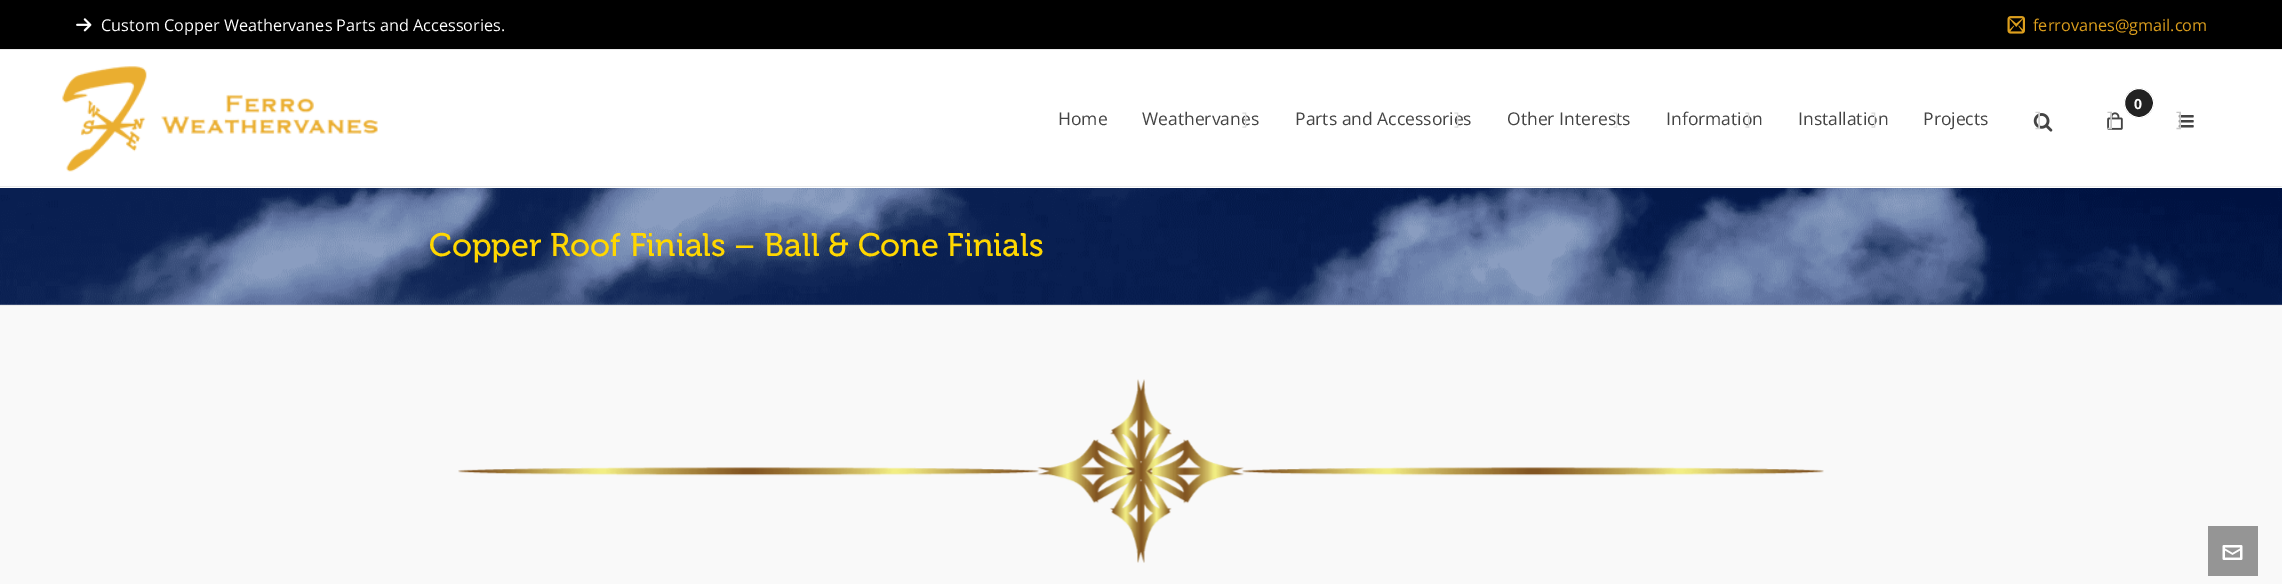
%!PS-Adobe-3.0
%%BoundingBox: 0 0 2282 584
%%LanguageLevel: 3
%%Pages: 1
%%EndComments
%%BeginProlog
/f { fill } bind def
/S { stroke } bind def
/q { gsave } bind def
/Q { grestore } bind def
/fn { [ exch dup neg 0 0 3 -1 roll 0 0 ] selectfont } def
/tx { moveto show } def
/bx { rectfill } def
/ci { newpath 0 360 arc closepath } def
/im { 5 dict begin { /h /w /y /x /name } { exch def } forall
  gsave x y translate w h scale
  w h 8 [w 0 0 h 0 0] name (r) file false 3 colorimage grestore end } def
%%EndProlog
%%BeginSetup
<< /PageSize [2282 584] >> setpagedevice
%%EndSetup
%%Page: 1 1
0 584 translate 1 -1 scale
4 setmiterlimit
0.976 setgray
0 0 2282 584 bx
0 setgray
0 0 2282 49 bx
0.922 setgray
0 49 2282 1 bx
(image0.raw) 76 18 16 14 im
/OpenSans-Regular 16.25 fn
1 setgray
(Custom Copper Weathervanes Parts and Accessories.) 101 31 tx
(image1.raw) 2007 16 18 18 im
0.867 0.624 0.114 setrgbcolor
(ferrovanes@gmail.com) 2033 31 tx
1 setgray
0 50 2282 138 bx
0.922 setgray
0 186 2282 1 bx
(image2.raw) 62 66 316 106 im
/OpenSans-Regular 17.5 fn
0.267 setgray
(Home) 1058 125 tx
(Weathervanes) 1142 125 tx
0.851 setgray
(]) 1242 125 tx
0.267 setgray
(Parts and Accessories) 1295 125 tx
0.851 setgray
(]) 1454 125 tx
0.267 setgray
(Other Interests) 1507 125 tx
0.906 setgray
(]) 1613 125 tx
0.267 setgray
(Information) 1666 125 tx
0.851 setgray
(]) 1745 125 tx
0.267 setgray
(Installation) 1798 125 tx
0.851 setgray
(]) 1871 125 tx
0.267 setgray
(Projects) 1923 125 tx
(image3.raw) 2033 113 20 19 im
/OpenSans-Regular 20 fn
0.827 setgray
(]) 2035 126 tx
0.133 setgray
2139 103 14.5 ci q f Q
1 setgray
S
/OpenSans-Bold 14 fn
(0) 2134 109 tx
(image4.raw) 2107 112 16 18 im
/OpenSans-Regular 20 fn
0.784 setgray
(]) 2107 126 tx
(image5.raw) 2178 115 16 13 im
(]) 2176 126 tx
0.922 setgray
0 305 2282 1 bx
(image6.raw) 0 188 2282 117 im
/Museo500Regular-Regular 32.5 fn
1 0.843 0 setrgbcolor
(Copper Roof Finials – Ball & Cone Finials) 429 256 tx
(image7.raw) 458 379 1366 184 im
0.584 setgray
2208 526 50 50 bx
(image8.raw) 2222 545 21 15 im
showpage
%%EOF
